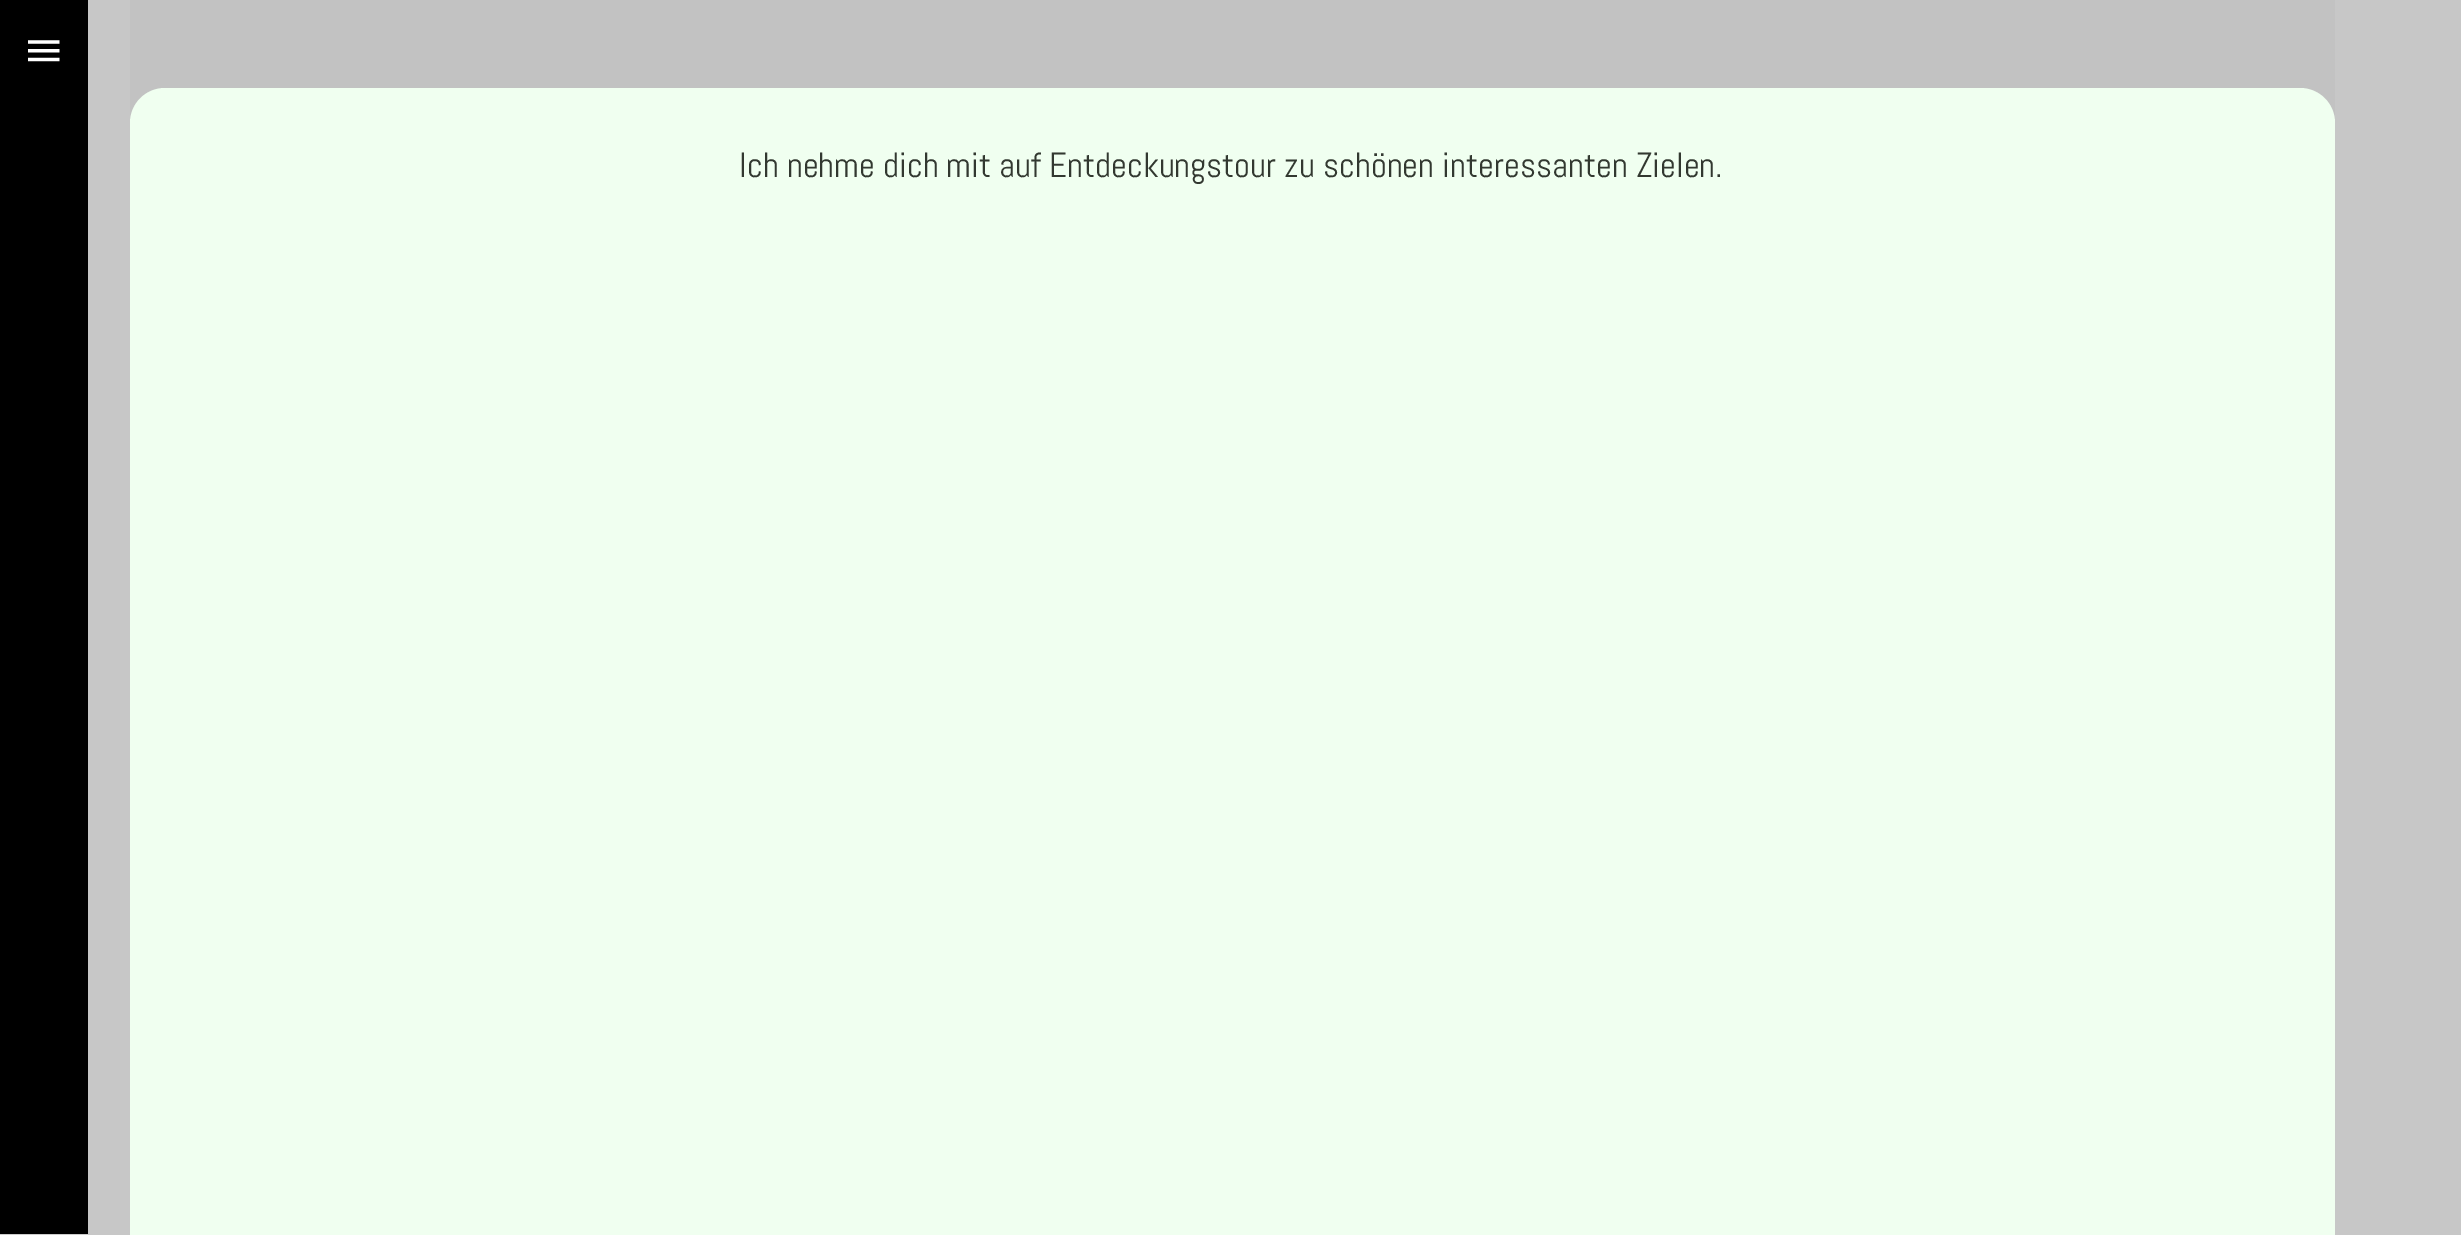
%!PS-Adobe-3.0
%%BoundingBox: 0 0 2461 1235
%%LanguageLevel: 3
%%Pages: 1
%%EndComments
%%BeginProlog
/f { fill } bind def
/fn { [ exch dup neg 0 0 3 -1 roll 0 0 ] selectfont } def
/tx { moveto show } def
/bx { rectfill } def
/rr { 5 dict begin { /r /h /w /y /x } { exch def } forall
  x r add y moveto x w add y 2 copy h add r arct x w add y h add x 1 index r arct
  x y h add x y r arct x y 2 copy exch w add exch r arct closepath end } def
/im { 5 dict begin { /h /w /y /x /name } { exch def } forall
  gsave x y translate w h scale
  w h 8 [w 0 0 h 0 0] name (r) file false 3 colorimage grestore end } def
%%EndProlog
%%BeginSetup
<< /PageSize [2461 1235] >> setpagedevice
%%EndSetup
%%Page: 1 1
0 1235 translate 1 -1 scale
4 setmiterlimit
0.78 setgray
0 0 2461 1235 bx
0 setgray
0 0 88 1234 bx
0.8 setgray
0 1234 88 1 bx
(image0.raw) 28 40 32 22 im
0.761 setgray
130 0 2205 123 bx
0.941 1 0.941 setrgbcolor
130 88 2205 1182 35 rr f
/Abel-Regular 35 fn
0.196 0.22 0.188 setrgbcolor
(Ich nehme dich mit auf Entdeckungstour zu schönen interessanten Zielen.) 739 177 tx
showpage
%%EOF
